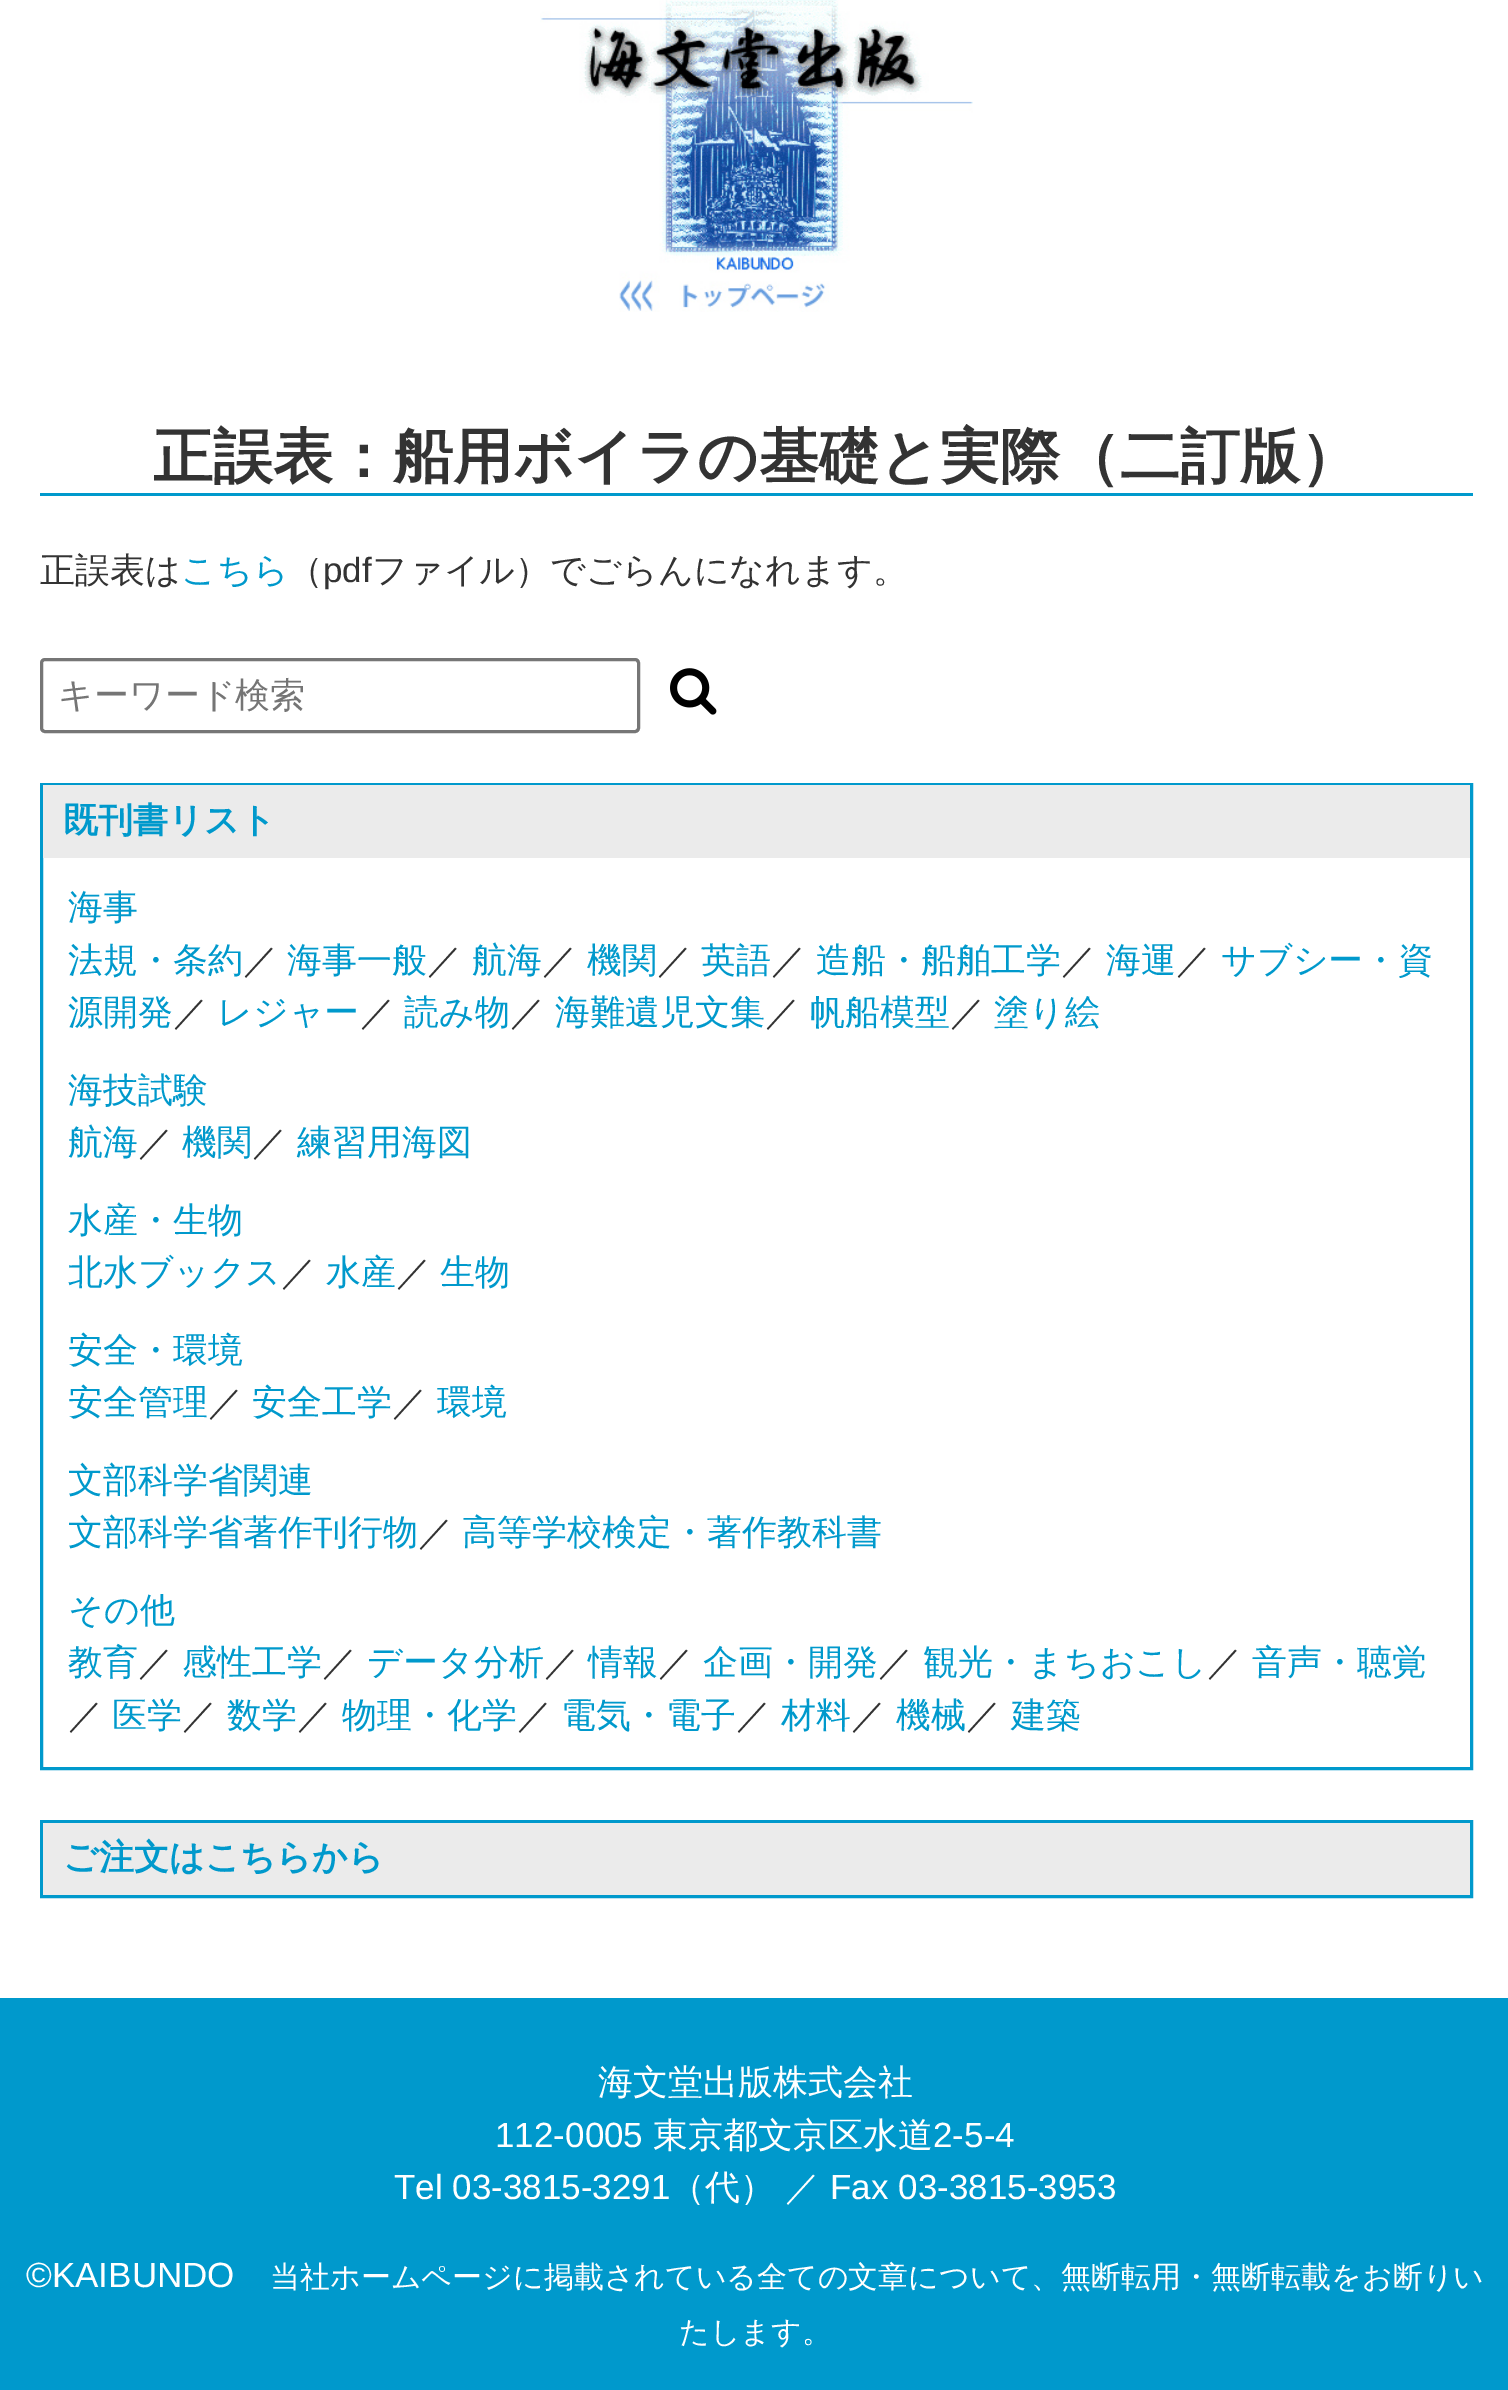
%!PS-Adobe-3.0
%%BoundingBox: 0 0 1508 2390
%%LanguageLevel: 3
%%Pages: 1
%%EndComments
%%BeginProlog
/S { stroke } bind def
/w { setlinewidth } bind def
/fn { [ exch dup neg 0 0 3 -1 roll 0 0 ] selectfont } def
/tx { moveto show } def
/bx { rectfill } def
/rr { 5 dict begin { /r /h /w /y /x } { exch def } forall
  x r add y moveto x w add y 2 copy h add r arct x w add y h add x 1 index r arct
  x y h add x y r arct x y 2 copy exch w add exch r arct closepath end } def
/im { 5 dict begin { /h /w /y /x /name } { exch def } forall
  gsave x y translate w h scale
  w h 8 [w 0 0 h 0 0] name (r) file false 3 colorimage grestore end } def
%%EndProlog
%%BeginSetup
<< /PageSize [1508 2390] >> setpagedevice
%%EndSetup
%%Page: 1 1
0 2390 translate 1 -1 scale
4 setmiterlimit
1 setgray
0 0 1508 2390 bx
(image0.raw) 540 0 433 312 im
0 0.6 0.8 setrgbcolor
40 493 1433 3 bx
/WenQuanYiZenHei-Bold 60 fn
0.2 setgray
(正誤表：船用ボイラの基礎と実際（二訂版）) 153 477 tx
/WenQuanYiZenHei-Medium 35 fn
(正誤表は) 40 582 tx
0 0.6 0.8 setrgbcolor
(こちら) 181 582 tx
0.2 setgray
(（) 288 582 tx
/LiberationSans-Regular 35 fn
(pdf) 323 582 tx
/WenQuanYiZenHei-Medium 35 fn
(ファイル）でごらんになれます。) 372 582 tx
0.463 setgray
3 w
41.5 659.5 597 72 3.5 rr S
0.459 setgray
(キーワード検索) 58 707 tx
(image1.raw) 670 668 47 47 im
0 0.6 0.8 setrgbcolor
41.5 784.5 1430 984 rectstroke
0.922 setgray
43 785 1427 73 bx
/WenQuanYiZenHei-Bold 35 fn
0 0.6 0.8 setrgbcolor
(既刊書リスト) 63 832 tx
/WenQuanYiZenHei-Medium 35 fn
(海事) 68 919 tx
(法規・条約) 68 972 tx
0.2 setgray
(／) 243 972 tx
0 0.6 0.8 setrgbcolor
(海事一般) 287 972 tx
0.2 setgray
(／) 427 972 tx
0 0.6 0.8 setrgbcolor
(航海) 472 972 tx
0.2 setgray
(／) 542 972 tx
0 0.6 0.8 setrgbcolor
(機関) 587 972 tx
0.2 setgray
(／) 657 972 tx
0 0.6 0.8 setrgbcolor
(英語) 701 972 tx
0.2 setgray
(／) 771 972 tx
0 0.6 0.8 setrgbcolor
(造船・船舶工学) 816 972 tx
0.2 setgray
(／) 1061 972 tx
0 0.6 0.8 setrgbcolor
(海運) 1106 972 tx
0.2 setgray
(／) 1176 972 tx
0 0.6 0.8 setrgbcolor
(サブシー・資) 1221 972 tx
(源開発) 68 1024 tx
0.2 setgray
(／) 173 1024 tx
0 0.6 0.8 setrgbcolor
(レジャー) 217 1024 tx
0.2 setgray
(／) 360 1024 tx
0 0.6 0.8 setrgbcolor
(読み物) 404 1024 tx
0.2 setgray
(／) 510 1024 tx
0 0.6 0.8 setrgbcolor
(海難遺児文集) 555 1024 tx
0.2 setgray
(／) 765 1024 tx
0 0.6 0.8 setrgbcolor
(帆船模型) 810 1024 tx
0.2 setgray
(／) 950 1024 tx
0 0.6 0.8 setrgbcolor
(塗り絵) 994 1024 tx
(海技試験) 68 1102 tx
(航海) 68 1154 tx
0.2 setgray
(／) 138 1154 tx
0 0.6 0.8 setrgbcolor
(機関) 182 1154 tx
0.2 setgray
(／) 252 1154 tx
0 0.6 0.8 setrgbcolor
(練習用海図) 297 1154 tx
(水産・生物) 68 1232 tx
(北水ブックス) 68 1284 tx
0.2 setgray
(／) 281 1284 tx
0 0.6 0.8 setrgbcolor
(水産) 326 1284 tx
0.2 setgray
(／) 396 1284 tx
0 0.6 0.8 setrgbcolor
(生物) 440 1284 tx
(安全・環境) 68 1362 tx
(安全管理) 68 1414 tx
0.2 setgray
(／) 208 1414 tx
0 0.6 0.8 setrgbcolor
(安全工学) 252 1414 tx
0.2 setgray
(／) 392 1414 tx
0 0.6 0.8 setrgbcolor
(環境) 437 1414 tx
(文部科学省関連) 68 1492 tx
(文部科学省著作刊行物) 68 1544 tx
0.2 setgray
(／) 418 1544 tx
0 0.6 0.8 setrgbcolor
(高等学校検定・著作教科書) 462 1544 tx
(その他) 68 1622 tx
(教育) 68 1674 tx
0.2 setgray
(／) 138 1674 tx
0 0.6 0.8 setrgbcolor
(感性工学) 182 1674 tx
0.2 setgray
(／) 322 1674 tx
0 0.6 0.8 setrgbcolor
(データ分析) 367 1674 tx
0.2 setgray
(／) 544 1674 tx
0 0.6 0.8 setrgbcolor
(情報) 588 1674 tx
0.2 setgray
(／) 658 1674 tx
0 0.6 0.8 setrgbcolor
(企画・開発) 703 1674 tx
0.2 setgray
(／) 878 1674 tx
0 0.6 0.8 setrgbcolor
(観光・まちおこし) 923 1674 tx
0.2 setgray
(／) 1207 1674 tx
0 0.6 0.8 setrgbcolor
(音声・聴覚) 1252 1674 tx
0.2 setgray
(／) 68 1727 tx
0 0.6 0.8 setrgbcolor
(医学) 112 1727 tx
0.2 setgray
(／) 182 1727 tx
0 0.6 0.8 setrgbcolor
(数学) 227 1727 tx
0.2 setgray
(／) 297 1727 tx
0 0.6 0.8 setrgbcolor
(物理・化学) 342 1727 tx
0.2 setgray
(／) 517 1727 tx
0 0.6 0.8 setrgbcolor
(電気・電子) 561 1727 tx
0.2 setgray
(／) 736 1727 tx
0 0.6 0.8 setrgbcolor
(材料) 781 1727 tx
0.2 setgray
(／) 851 1727 tx
0 0.6 0.8 setrgbcolor
(機械) 896 1727 tx
0.2 setgray
(／) 966 1727 tx
0 0.6 0.8 setrgbcolor
(建築) 1011 1727 tx
41.5 1821.5 1430 75 rectstroke
0.922 setgray
43 1823 1427 72 bx
/WenQuanYiZenHei-Bold 35 fn
0 0.6 0.8 setrgbcolor
(ご注文はこちらから) 63 1869 tx
0 1998 1508 392 bx
/WenQuanYiZenHei-Medium 35 fn
1 setgray
(海文堂出版株式会社) 598 2094 tx
/LiberationSans-Regular 35 fn
(112-0005) 495 2147 tx
/WenQuanYiZenHei-Medium 35 fn
(東京都文京区水道) 653 2147 tx
/LiberationSans-Regular 35 fn
(2-5-4) 933 2147 tx
(Tel 03-3815-3291) 394 2199 tx
/WenQuanYiZenHei-Medium 35 fn
(（代）) 670 2199 tx
(／) 785 2199 tx
/LiberationSans-Regular 35 fn
(Fax 03-3815-3953) 830 2199 tx
(©KAIBUNDO) 26 2287 tx
/WenQuanYiZenHei-Medium 30 fn
(当社ホームページに掲載されている全ての文章について、無断転用・無断転載をお断りい) 270 2287 tx
(たします。) 679 2342 tx
showpage
%%EOF
